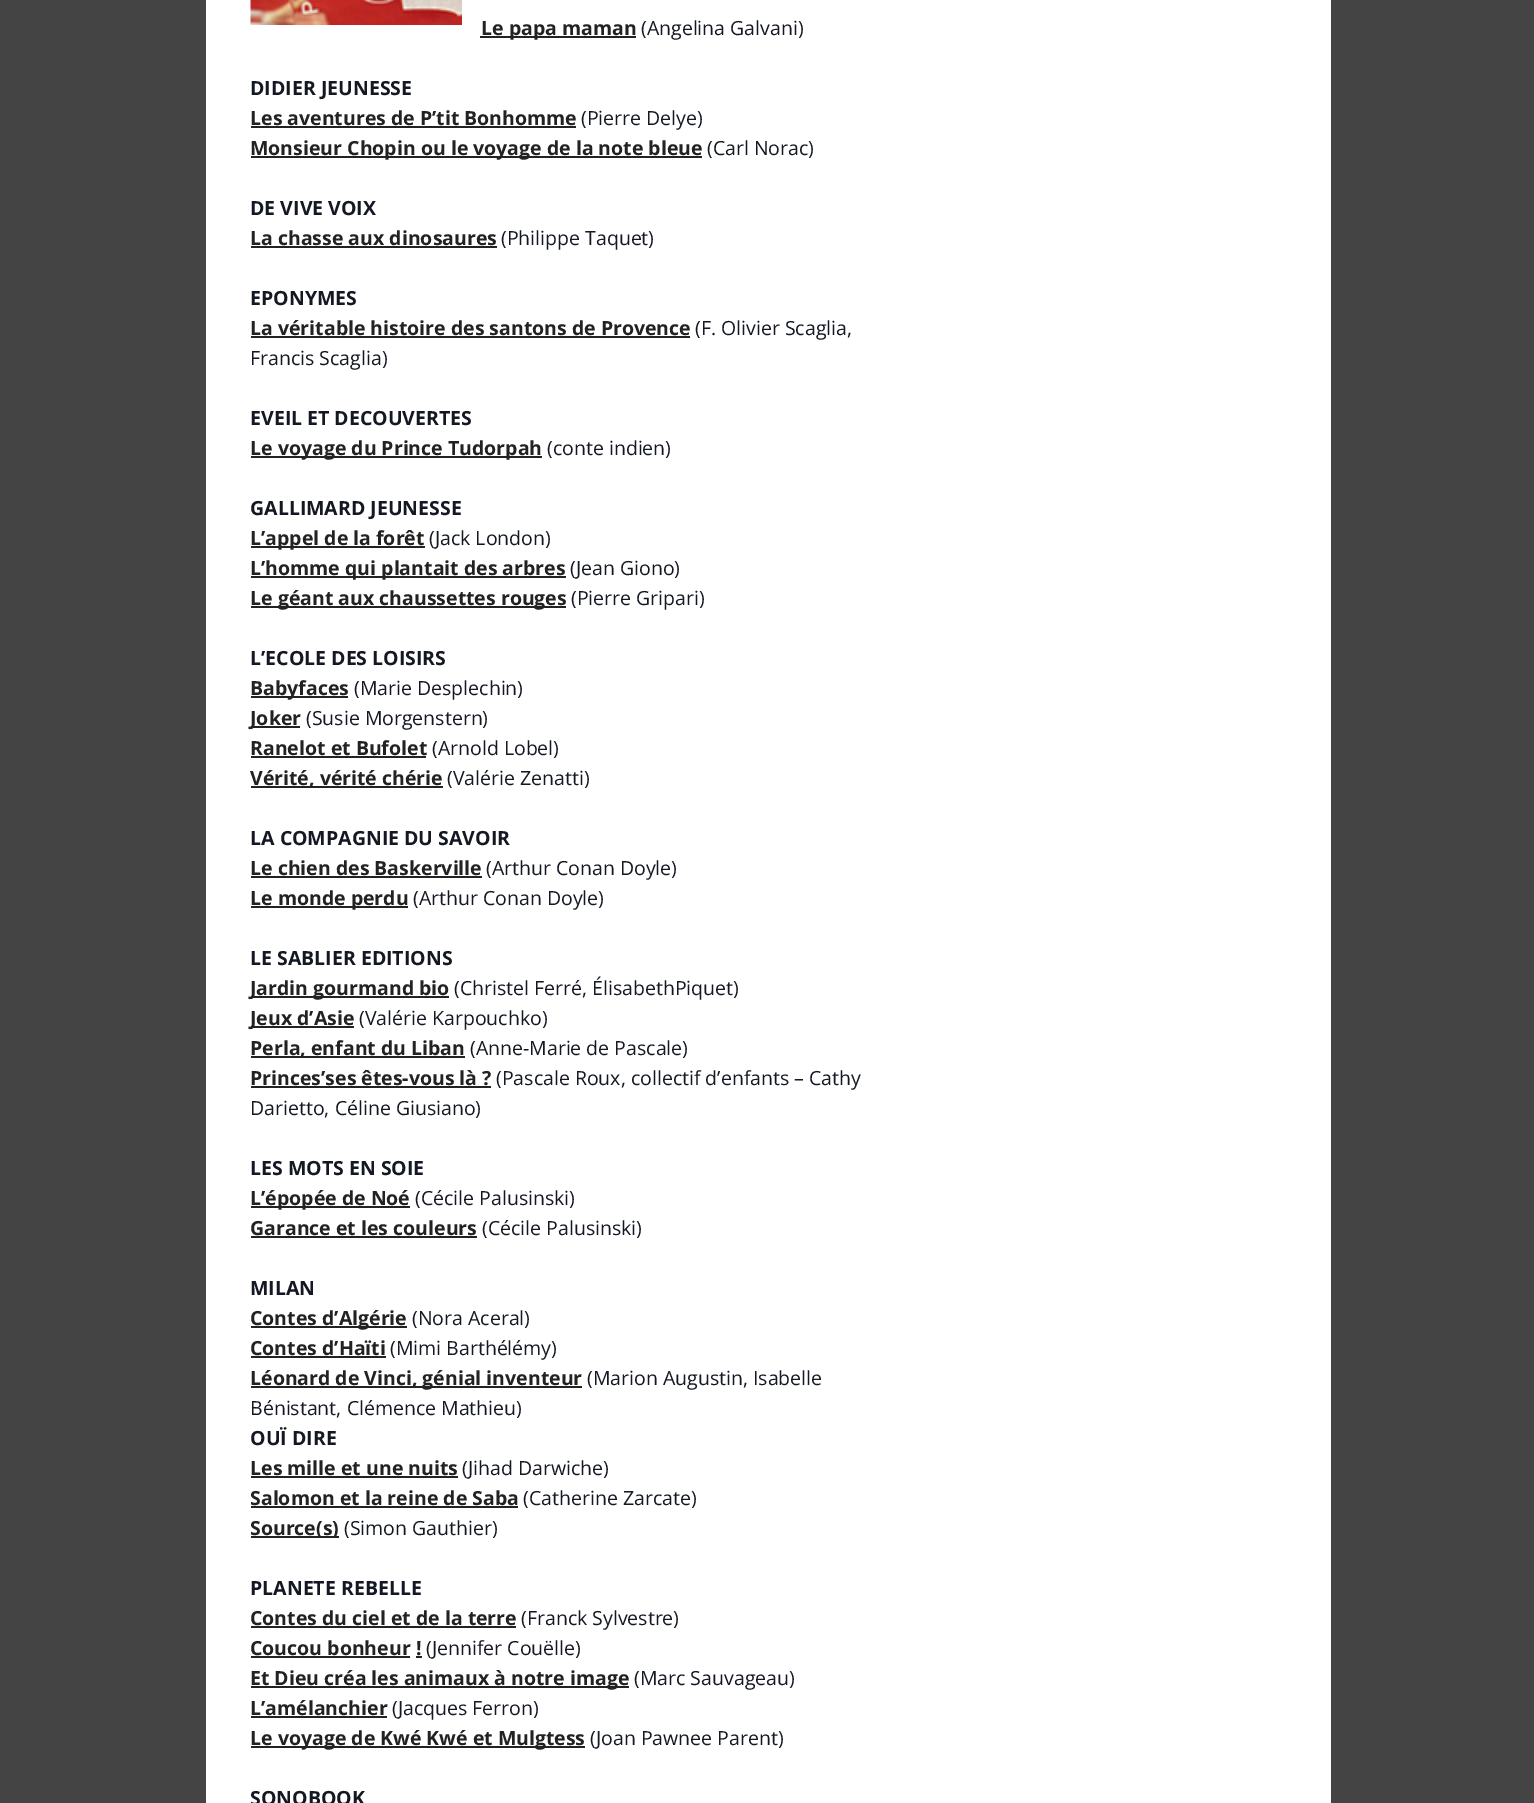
%!PS-Adobe-3.0
%%BoundingBox: 0 0 1534 1803
%%LanguageLevel: 3
%%Pages: 1
%%EndComments
%%BeginProlog
/fn { [ exch dup neg 0 0 3 -1 roll 0 0 ] selectfont } def
/tx { moveto show } def
/bx { rectfill } def
/im { 5 dict begin { /h /w /y /x /name } { exch def } forall
  gsave x y translate w h scale
  w h 8 [w 0 0 h 0 0] name (r) file false 3 colorimage grestore end } def
%%EndProlog
%%BeginSetup
<< /PageSize [1534 1803] >> setpagedevice
%%EndSetup
%%Page: 1 1
0 1803 translate 1 -1 scale
4 setmiterlimit
0.267 setgray
0 0 1534 1803 bx
1 setgray
206 0 1125 1803 bx
(image0.raw) 250 0 212 25 im
0.133 setgray
480 36 156 2 bx
/OpenSans-Bold 19.5 fn
(Le papa maman) 481 35 tx
/OpenSans-Regular 19.5 fn
0.078 0.094 0.137 setrgbcolor
(\(Angelina Galvani\)) 641 35 tx
/OpenSans-Bold 19.5 fn
(DIDIER JEUNESSE) 250 95 tx
0.133 setgray
(Les aventures de P’tit Bonhomme) 250 125 tx
251 126 325 2 bx
/OpenSans-Regular 19.5 fn
0.078 0.094 0.137 setrgbcolor
(\(Pierre Delye\)) 581 125 tx
0.133 setgray
251 156 451 2 bx
/OpenSans-Bold 19.5 fn
(Monsieur Chopin ou le voyage de la note bleue) 250 155 tx
/OpenSans-Regular 19.5 fn
0.078 0.094 0.137 setrgbcolor
(\(Carl Norac\)) 707 155 tx
/OpenSans-Bold 19.5 fn
(DE VIVE VOIX) 250 215 tx
0.133 setgray
(La chasse aux dinosaures) 250 245 tx
251 246 246 2 bx
/OpenSans-Regular 19.5 fn
0.078 0.094 0.137 setrgbcolor
(\(Philippe Taquet\)) 501 245 tx
/OpenSans-Bold 19.5 fn
(EPONYMES) 250 305 tx
0.133 setgray
(La véritable histoire des santons de Provence) 250 335 tx
251 336 439 2 bx
/OpenSans-Regular 19.5 fn
0.078 0.094 0.137 setrgbcolor
(\(F. Olivier Scaglia,) 695 335 tx
(Francis Scaglia\)) 250 365 tx
/OpenSans-Bold 19.5 fn
(EVEIL ET DECOUVERTES) 250 425 tx
0.133 setgray
251 456 291 2 bx
(Le voyage du Prince Tudorpah) 250 455 tx
/OpenSans-Regular 19.5 fn
0.078 0.094 0.137 setrgbcolor
(\(conte indien\)) 547 455 tx
/OpenSans-Bold 19.5 fn
(GALLIMARD JEUNESSE) 250 515 tx
0.133 setgray
251 546 174 2 bx
(L’appel de la forêt) 250 545 tx
/OpenSans-Regular 19.5 fn
0.078 0.094 0.137 setrgbcolor
(\(Jack London\)) 429 545 tx
0.133 setgray
251 576 315 2 bx
/OpenSans-Bold 19.5 fn
(L’homme qui plantait des arbres) 250 575 tx
/OpenSans-Regular 19.5 fn
0.078 0.094 0.137 setrgbcolor
(\(Jean Giono\)) 570 575 tx
0.133 setgray
251 606 315 2 bx
/OpenSans-Bold 19.5 fn
(Le géant aux chaussettes rouges) 250 605 tx
/OpenSans-Regular 19.5 fn
0.078 0.094 0.137 setrgbcolor
(\(Pierre Gripari\)) 571 605 tx
/OpenSans-Bold 19.5 fn
(L’ECOLE DES LOISIRS) 250 665 tx
0.133 setgray
251 696 97 2 bx
(Babyfaces) 250 695 tx
/OpenSans-Regular 19.5 fn
0.078 0.094 0.137 setrgbcolor
(\(Marie Desplechin\)) 354 695 tx
0.133 setgray
251 726 49 2 bx
/OpenSans-Bold 19.5 fn
(Joker) 250 725 tx
/OpenSans-Regular 19.5 fn
0.078 0.094 0.137 setrgbcolor
(\(Susie Morgenstern\)) 306 725 tx
/OpenSans-Bold 19.5 fn
0.133 setgray
(Ranelot et Bufolet) 250 755 tx
251 756 175 2 bx
/OpenSans-Regular 19.5 fn
0.078 0.094 0.137 setrgbcolor
(\(Arnold Lobel\)) 432 755 tx
0.133 setgray
251 786 192 2 bx
/OpenSans-Bold 19.5 fn
(Vérité, vérité chérie) 250 785 tx
/OpenSans-Regular 19.5 fn
0.078 0.094 0.137 setrgbcolor
(\(Valérie Zenatti\)) 447 785 tx
/OpenSans-Bold 19.5 fn
(LA COMPAGNIE DU SAVOIR) 250 845 tx
0.133 setgray
(Le chien des Baskerville) 250 875 tx
251 876 231 2 bx
/OpenSans-Regular 19.5 fn
0.078 0.094 0.137 setrgbcolor
(\(Arthur Conan Doyle\)) 486 875 tx
0.133 setgray
251 906 157 2 bx
/OpenSans-Bold 19.5 fn
(Le monde perdu) 250 905 tx
/OpenSans-Regular 19.5 fn
0.078 0.094 0.137 setrgbcolor
(\(Arthur Conan Doyle\)) 413 905 tx
/OpenSans-Bold 19.5 fn
(LE SABLIER EDITIONS) 250 965 tx
0.133 setgray
251 996 198 2 bx
(Jardin gourmand bio) 250 995 tx
/OpenSans-Regular 19.5 fn
0.078 0.094 0.137 setrgbcolor
(\(Christel Ferré, ÉlisabethPiquet\)) 454 995 tx
0.133 setgray
251 1026 103 2 bx
/OpenSans-Bold 19.5 fn
(Jeux d’Asie) 250 1025 tx
/OpenSans-Regular 19.5 fn
0.078 0.094 0.137 setrgbcolor
(\(Valérie Karpouchko\)) 359 1025 tx
0.133 setgray
251 1056 214 2 bx
/OpenSans-Bold 19.5 fn
(Perla, enfant du Liban) 250 1055 tx
/OpenSans-Regular 19.5 fn
0.078 0.094 0.137 setrgbcolor
(\(Anne-Marie de Pascale\)) 470 1055 tx
/OpenSans-Bold 19.5 fn
0.133 setgray
(Princes’ses êtes-vous là ?) 250 1085 tx
251 1086 240 2 bx
/OpenSans-Regular 19.5 fn
0.078 0.094 0.137 setrgbcolor
(\(Pascale Roux, collectif d’enfants – Cathy) 496 1085 tx
(Darietto, Céline Giusiano\)) 250 1115 tx
/OpenSans-Bold 19.5 fn
(LES MOTS EN SOIE) 250 1175 tx
0.133 setgray
251 1206 159 2 bx
(L’épopée de Noé) 250 1205 tx
/OpenSans-Regular 19.5 fn
0.078 0.094 0.137 setrgbcolor
(\(Cécile Palusinski\)) 415 1205 tx
/OpenSans-Bold 19.5 fn
0.133 setgray
(Garance et les couleurs) 250 1235 tx
251 1236 226 2 bx
/OpenSans-Regular 19.5 fn
0.078 0.094 0.137 setrgbcolor
(\(Cécile Palusinski\)) 482 1235 tx
/OpenSans-Bold 19.5 fn
(MILAN) 250 1295 tx
0.133 setgray
251 1326 156 2 bx
(Contes d’Algérie) 250 1325 tx
/OpenSans-Regular 19.5 fn
0.078 0.094 0.137 setrgbcolor
(\(Nora Aceral\)) 412 1325 tx
/OpenSans-Bold 19.5 fn
0.133 setgray
(Contes d’Haïti) 250 1355 tx
251 1356 135 2 bx
/OpenSans-Regular 19.5 fn
0.078 0.094 0.137 setrgbcolor
(\(Mimi Barthélémy\)) 390 1355 tx
0.133 setgray
251 1386 331 2 bx
/OpenSans-Bold 19.5 fn
(Léonard de Vinci, génial inventeur) 250 1385 tx
/OpenSans-Regular 19.5 fn
0.078 0.094 0.137 setrgbcolor
(\(Marion Augustin, Isabelle) 587 1385 tx
(Bénistant, Clémence Mathieu\)) 250 1415 tx
/OpenSans-Bold 19.5 fn
(OUÏ DIRE) 250 1445 tx
0.133 setgray
(Les mille et une nuits) 250 1475 tx
251 1476 207 2 bx
/OpenSans-Regular 19.5 fn
0.078 0.094 0.137 setrgbcolor
(\(Jihad Darwiche\)) 462 1475 tx
/OpenSans-Bold 19.5 fn
0.133 setgray
(Salomon et la reine de Saba) 250 1505 tx
251 1506 267 2 bx
/OpenSans-Regular 19.5 fn
0.078 0.094 0.137 setrgbcolor
(\(Catherine Zarcate\)) 523 1505 tx
0.133 setgray
251 1536 88 2 bx
/OpenSans-Bold 19.5 fn
(Source\(s\)) 250 1535 tx
/OpenSans-Regular 19.5 fn
0.078 0.094 0.137 setrgbcolor
(\(Simon Gauthier\)) 344 1535 tx
/OpenSans-Bold 19.5 fn
(PLANETE REBELLE) 250 1595 tx
0.133 setgray
(Contes du ciel et de la terre) 250 1625 tx
251 1626 265 2 bx
/OpenSans-Regular 19.5 fn
0.078 0.094 0.137 setrgbcolor
(\(Franck Sylvestre\)) 521 1625 tx
/OpenSans-Bold 19.5 fn
0.133 setgray
(Coucou bonheur !) 250 1655 tx
251 1656 159 2 bx
/OpenSans-Regular 19.5 fn
0.078 0.094 0.137 setrgbcolor
(\(Jennifer Couëlle\)) 426 1655 tx
0.133 setgray
416 1656 6 2 bx
251 1686 378 2 bx
/OpenSans-Bold 19.5 fn
(Et Dieu créa les animaux à notre image) 250 1685 tx
/OpenSans-Regular 19.5 fn
0.078 0.094 0.137 setrgbcolor
(\(Marc Sauvageau\)) 634 1685 tx
/OpenSans-Bold 19.5 fn
0.133 setgray
(L’amélanchier) 250 1715 tx
251 1716 136 2 bx
/OpenSans-Regular 19.5 fn
0.078 0.094 0.137 setrgbcolor
(\(Jacques Ferron\)) 392 1715 tx
0.133 setgray
251 1746 334 2 bx
/OpenSans-Bold 19.5 fn
(Le voyage de Kwé Kwé et Mulgtess) 250 1745 tx
/OpenSans-Regular 19.5 fn
0.078 0.094 0.137 setrgbcolor
(\(Joan Pawnee Parent\)) 590 1745 tx
/OpenSans-Bold 19.5 fn
(SONOBOOK) 250 1805 tx
showpage
%%EOF
